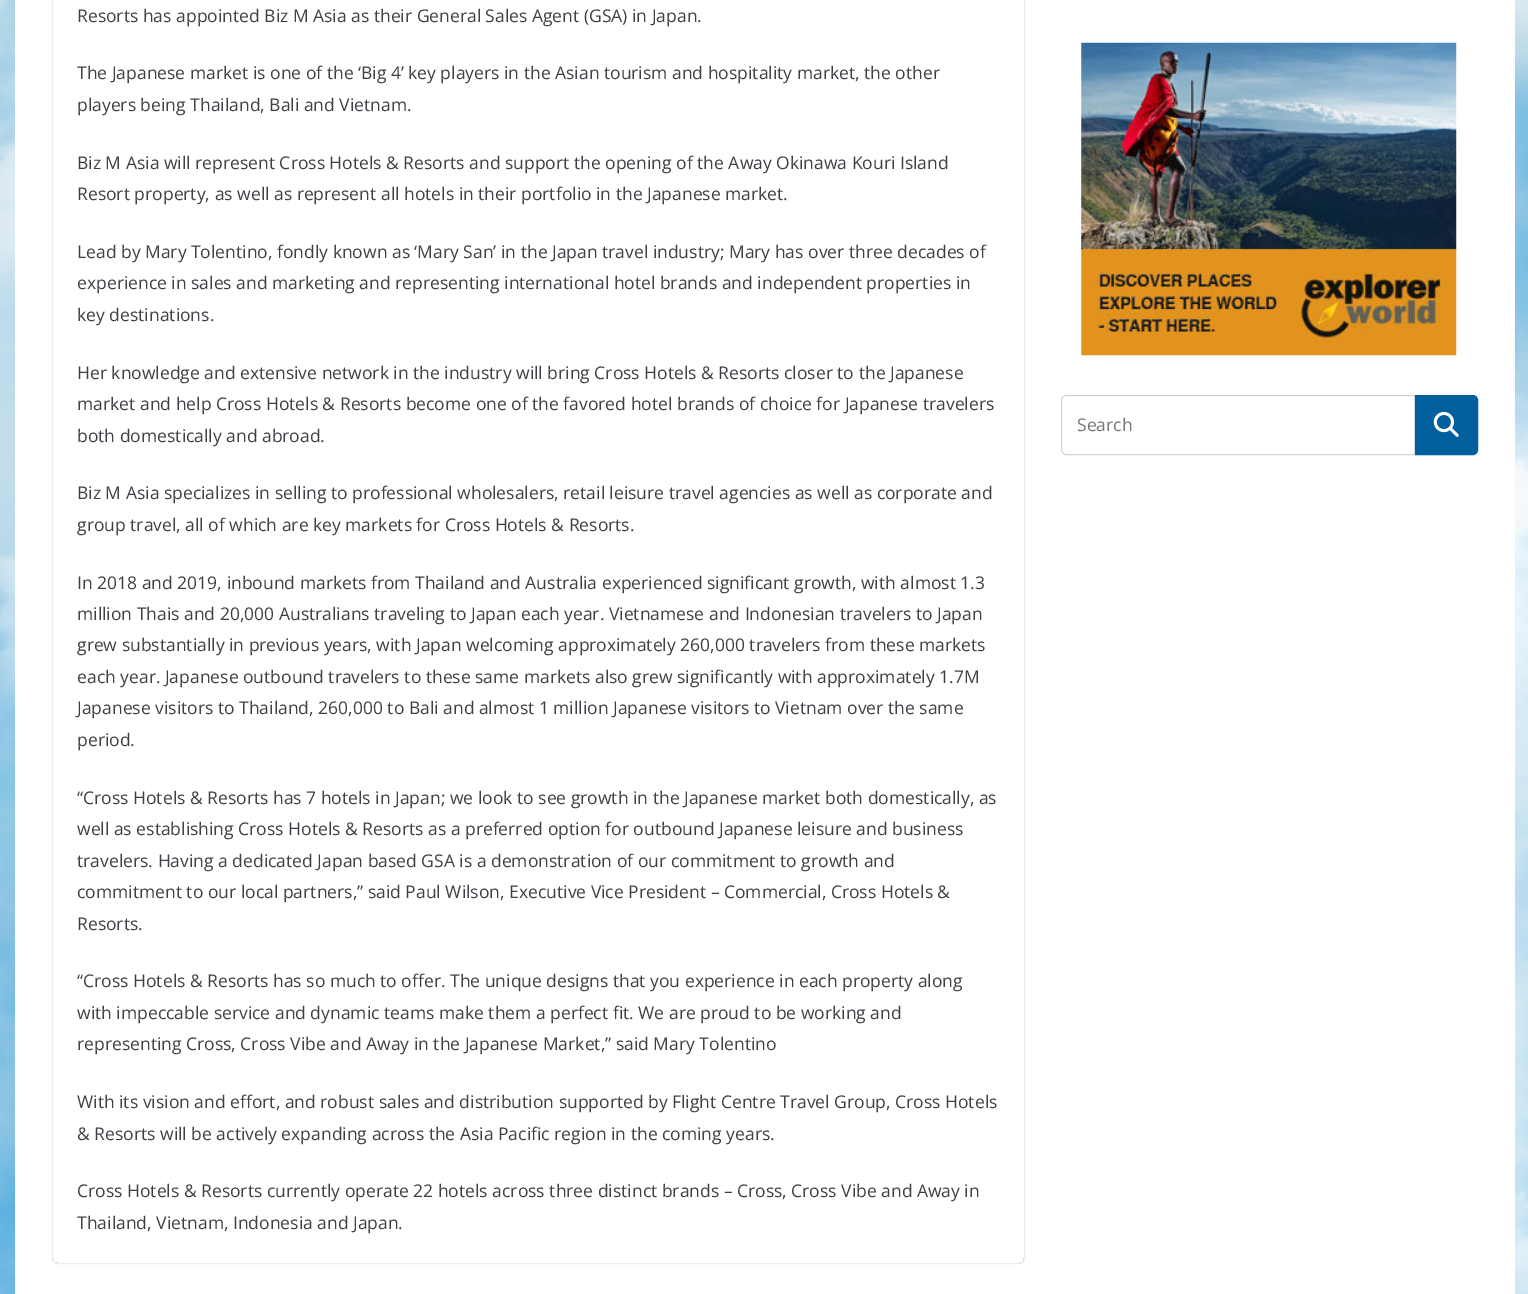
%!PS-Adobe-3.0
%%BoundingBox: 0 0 1528 1294
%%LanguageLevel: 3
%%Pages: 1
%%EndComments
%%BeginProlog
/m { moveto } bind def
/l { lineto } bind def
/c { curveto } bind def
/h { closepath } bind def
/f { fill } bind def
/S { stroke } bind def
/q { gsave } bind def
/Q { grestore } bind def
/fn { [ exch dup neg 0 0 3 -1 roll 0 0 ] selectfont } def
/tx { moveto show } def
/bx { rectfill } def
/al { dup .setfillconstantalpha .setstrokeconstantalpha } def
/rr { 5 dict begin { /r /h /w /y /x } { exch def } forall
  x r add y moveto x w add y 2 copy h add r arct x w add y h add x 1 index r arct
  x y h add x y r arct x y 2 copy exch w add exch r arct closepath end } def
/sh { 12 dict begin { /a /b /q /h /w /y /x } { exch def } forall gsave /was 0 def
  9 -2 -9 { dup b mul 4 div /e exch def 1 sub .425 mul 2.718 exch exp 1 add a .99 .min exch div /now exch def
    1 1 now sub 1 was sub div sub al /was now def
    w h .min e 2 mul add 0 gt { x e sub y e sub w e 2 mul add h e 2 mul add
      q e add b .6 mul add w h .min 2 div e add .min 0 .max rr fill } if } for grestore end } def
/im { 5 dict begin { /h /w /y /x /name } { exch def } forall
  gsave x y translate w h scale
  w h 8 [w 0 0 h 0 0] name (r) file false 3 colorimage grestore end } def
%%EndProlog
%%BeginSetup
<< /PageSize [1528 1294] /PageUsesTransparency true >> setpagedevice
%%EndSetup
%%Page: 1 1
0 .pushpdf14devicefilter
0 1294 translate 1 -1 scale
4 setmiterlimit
1 setgray
0 0 1528 1294 bx
(image0.raw) 0 0 1528 1294 im
15 0 1500 1294 bx
q
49 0 m 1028 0 l 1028 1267 l 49 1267 l h 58 -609 m 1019 -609 l 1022 -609 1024 -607 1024 -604 c 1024 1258 l 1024 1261 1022 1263 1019 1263 c 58 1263 l 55 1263 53 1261 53 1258 c 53 -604 l 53 -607 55 -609 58 -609 c h eoclip newpath
0 setgray
53 -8 971 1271 5 1 0.24 sh
Q
/OpenSans-Regular 17.5 fn
0.247 0.247 0.275 setrgbcolor
(Resorts has appointed Biz M Asia as their General Sales Agent \(GSA\) in Japan.) 77 22 tx
(The Japanese market is one of the ‘Big 4’ key players in the Asian tourism and hospitality market, the other) 77 79 tx
(players being Thailand, Bali and Vietnam.) 77 111 tx
(Biz M Asia will represent Cross Hotels & Resorts and support the opening of the Away Okinawa Kouri Island) 77 169 tx
(Resort property, as well as represent all hotels in their portfolio in the Japanese market.) 77 200 tx
(Lead by Mary Tolentino, fondly known as ‘Mary San’ in the Japan travel industry; Mary has over three decades of) 77 258 tx
(experience in sales and marketing and representing international hotel brands and independent properties in) 77 289 tx
(key destinations.) 77 321 tx
(Her knowledge and extensive network in the industry will bring Cross Hotels & Resorts closer to the Japanese) 77 379 tx
(market and help Cross Hotels & Resorts become one of the favored hotel brands of choice for Japanese travelers) 77 410 tx
(both domestically and abroad.) 77 442 tx
(Biz M Asia specializes in selling to professional wholesalers, retail leisure travel agencies as well as corporate and) 77 499 tx
(group travel, all of which are key markets for Cross Hotels & Resorts.) 77 531 tx
(In 2018 and 2019, inbound markets from Thailand and Australia experienced significant growth, with almost 1.3) 77 589 tx
(million Thais and 20,000 Australians traveling to Japan each year. Vietnamese and Indonesian travelers to Japan) 77 620 tx
(grew substantially in previous years, with Japan welcoming approximately 260,000 travelers from these markets) 77 651 tx
(each year. Japanese outbound travelers to these same markets also grew significantly with approximately 1.7M) 77 683 tx
(Japanese visitors to Thailand, 260,000 to Bali and almost 1 million Japanese visitors to Vietnam over the same) 77 714 tx
(period.) 77 746 tx
(“Cross Hotels & Resorts has 7 hotels in Japan; we look to see growth in the Japanese market both domestically, as) 77 804 tx
(well as establishing Cross Hotels & Resorts as a preferred option for outbound Japanese leisure and business) 77 835 tx
(travelers. Having a dedicated Japan based GSA is a demonstration of our commitment to growth and) 77 867 tx
(commitment to our local partners,” said Paul Wilson, Executive Vice President – Commercial, Cross Hotels &) 77 898 tx
(Resorts.) 77 930 tx
(“Cross Hotels & Resorts has so much to offer. The unique designs that you experience in each property along) 77 987 tx
(with impeccable service and dynamic teams make them a perfect fit. We are proud to be working and) 77 1019 tx
(representing Cross, Cross Vibe and Away in the Japanese Market,” said Mary Tolentino) 77 1050 tx
(With its vision and effort, and robust sales and distribution supported by Flight Centre Travel Group, Cross Hotels) 77 1108 tx
(& Resorts will be actively expanding across the Asia Pacific region in the coming years.) 77 1140 tx
(Cross Hotels & Resorts currently operate 22 hotels across three distinct brands – Cross, Cross Vibe and Away in) 77 1197 tx
(Thailand, Vietnam, Indonesia and Japan.) 77 1229 tx
(image1.raw) 1081 42 376 314 im
0.831 0.831 0.847 setrgbcolor
1066 395.5 m 1414.5 395.5 l 1414.5 454.5 l 1066 454.5 l 1063.5 454.5 1061.5 452.5 1061.5 450 c 1061.5 400 l 1061.5 397.5 1063.5 395.5 1066 395.5 c h S
0.459 setgray
(Search) 1077 431 tx
0.004 0.373 0.62 setrgbcolor
1415.5 395.5 m 1473 395.5 l 1475.5 395.5 1477.5 397.5 1477.5 400 c 1477.5 450 l 1477.5 452.5 1475.5 454.5 1473 454.5 c 1415.5 454.5 l h q f Q
S
(image2.raw) 1433 411 26 26 im
.poppdf14devicefilter showpage
%%EOF
